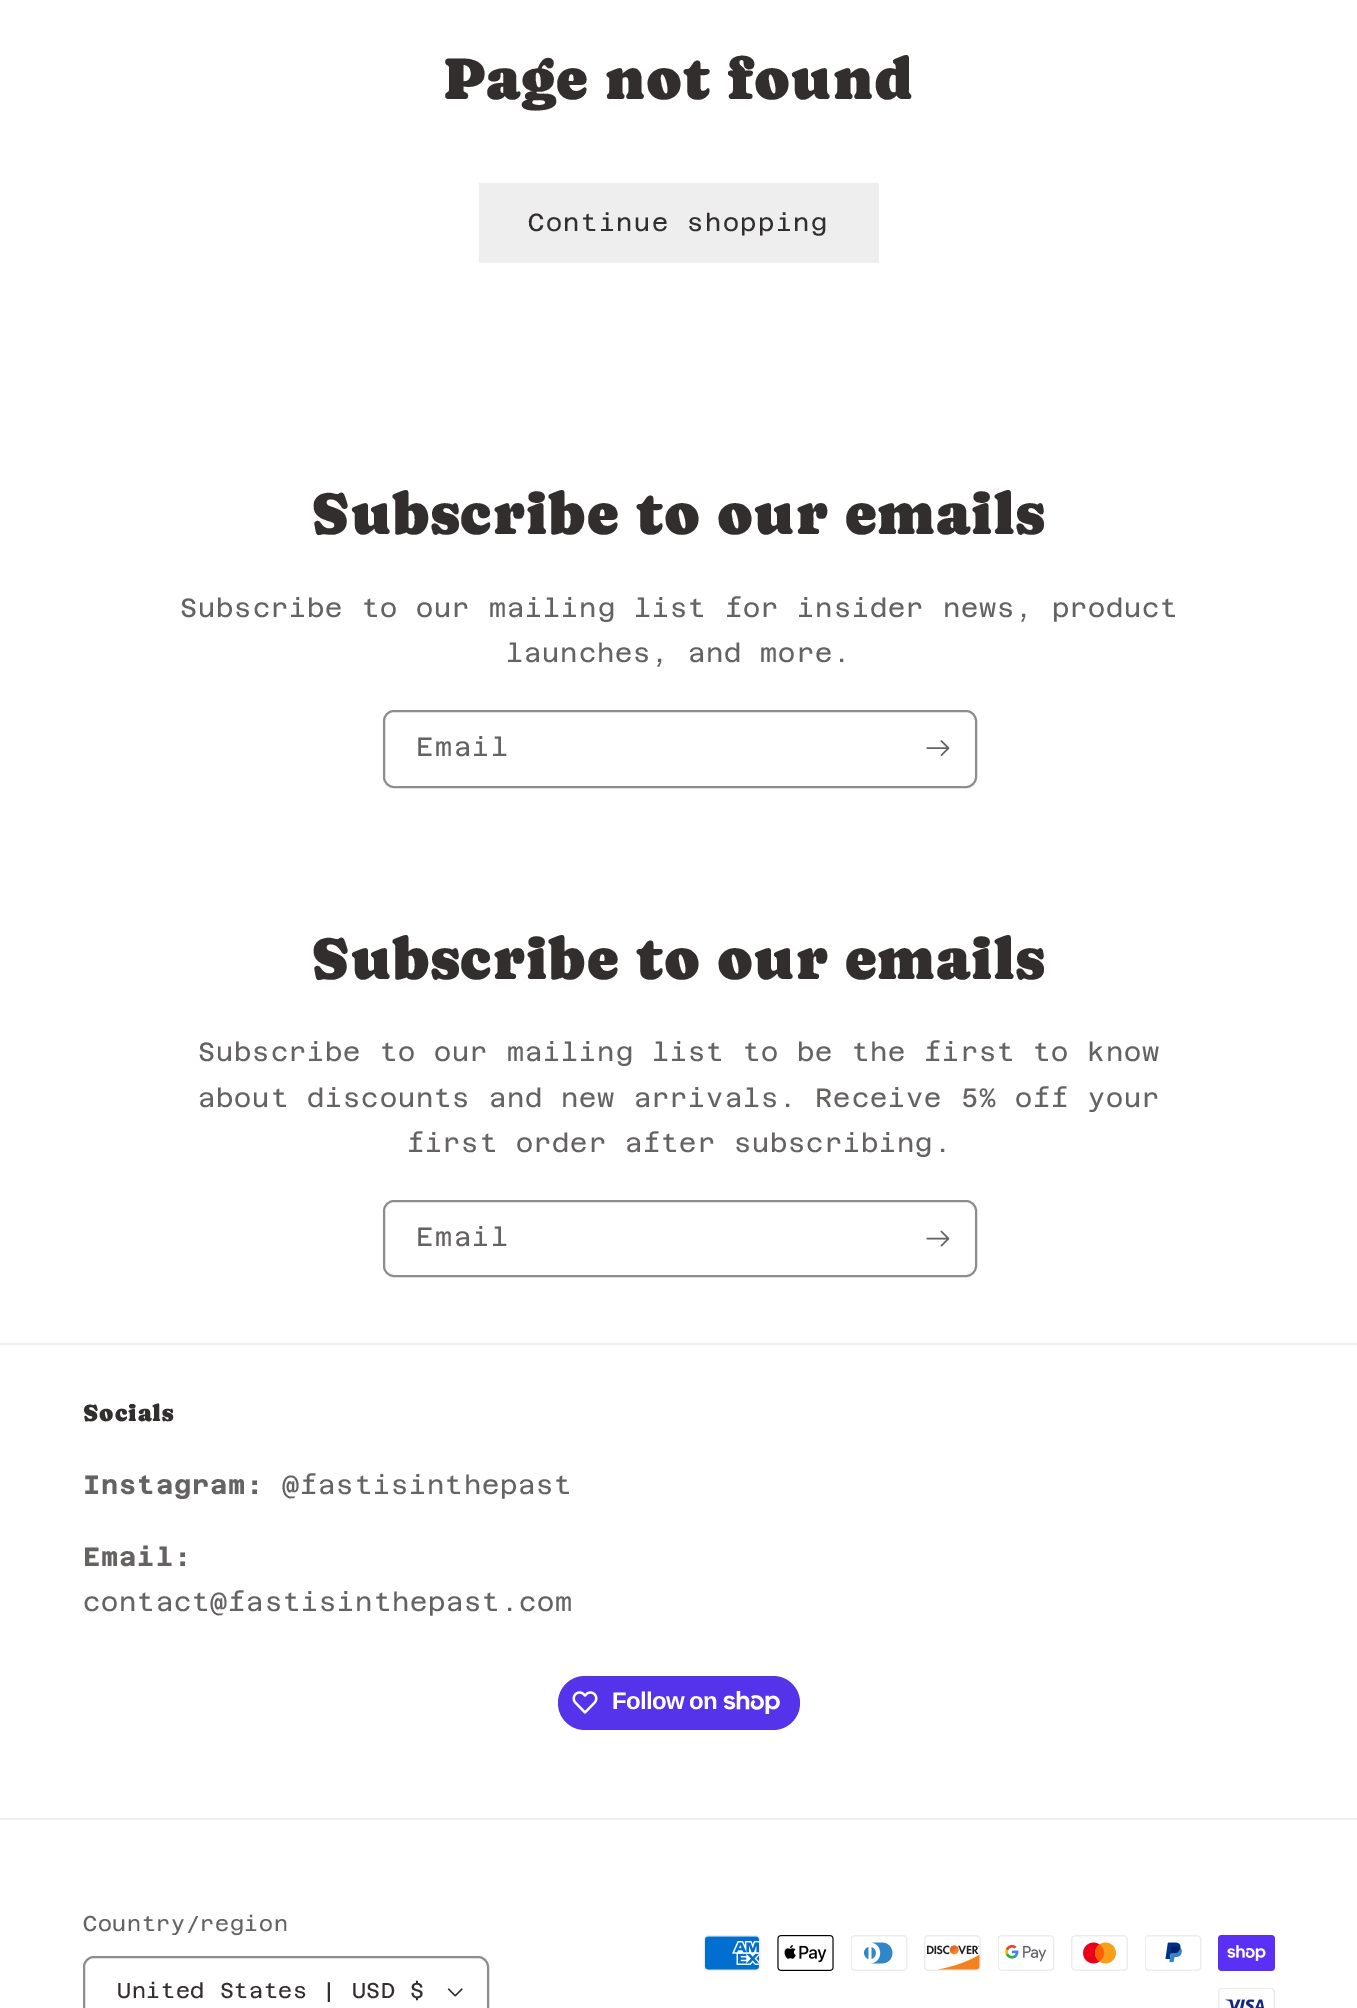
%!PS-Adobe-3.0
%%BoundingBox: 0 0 1357 2008
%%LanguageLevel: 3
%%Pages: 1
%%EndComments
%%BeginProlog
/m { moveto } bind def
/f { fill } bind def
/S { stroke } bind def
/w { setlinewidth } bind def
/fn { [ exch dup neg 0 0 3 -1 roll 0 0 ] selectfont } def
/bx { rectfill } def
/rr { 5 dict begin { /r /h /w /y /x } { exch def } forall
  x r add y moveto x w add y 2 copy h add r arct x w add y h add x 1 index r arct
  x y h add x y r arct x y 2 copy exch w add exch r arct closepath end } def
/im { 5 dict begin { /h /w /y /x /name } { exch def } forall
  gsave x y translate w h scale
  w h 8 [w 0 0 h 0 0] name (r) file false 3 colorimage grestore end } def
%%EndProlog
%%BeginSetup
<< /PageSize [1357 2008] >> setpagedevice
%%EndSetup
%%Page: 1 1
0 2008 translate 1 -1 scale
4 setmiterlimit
1 setgray
0 0 1357 2008 bx
/Caprasimo-Regular 60 fn
0.196 0.18 0.18 setrgbcolor
444 99 m 0.9 0 (Page not found) ashow
0.933 setgray
479 183 400 80 bx
/AzeretMono-Regular 24.75 fn
0.196 0.18 0.18 setrgbcolor
528 231 m 1.6 0 (Continue shopping) ashow
/Caprasimo-Regular 60 fn
311 534 m 0.9 0 (Subscribe to our emails) ashow
/AzeretMono-Regular 26.4 fn
0.396 0.384 0.384 setrgbcolor
180 617 m 1 0 (Subscribe to our mailing list for insider news, product) ashow
506 662 m 1 0 (launches, and more.) ashow
0.557 0.549 0.549 setrgbcolor
2 w
384 711 592 76 10 rr S
0.396 0.384 0.384 setrgbcolor
416 756 m 1.6 0 (Email) ashow
(image0.raw) 926 740 24 16 im
/Caprasimo-Regular 60 fn
0.196 0.18 0.18 setrgbcolor
311 979 m 0.9 0 (Subscribe to our emails) ashow
/AzeretMono-Regular 26.4 fn
0.396 0.384 0.384 setrgbcolor
198 1061 m 1 0 (Subscribe to our mailing list to be the first to know) ashow
198 1107 m 1 0 (about discounts and new arrivals. Receive 5% off your) ashow
407 1152 m 1 0 (first order after subscribing.) ashow
0.557 0.549 0.549 setrgbcolor
384 1201 592 75 10 rr S
0.396 0.384 0.384 setrgbcolor
416 1246 m 1.6 0 (Email) ashow
(image1.raw) 926 1230 24 17 im
0.937 0.933 0.933 setrgbcolor
0 1343 1357 2 bx
/Caprasimo-Regular 24 fn
0.196 0.18 0.18 setrgbcolor
83 1421 m 0.9 0 (Socials) ashow
/AzeretMono-Bold 26.4 fn
0.396 0.384 0.384 setrgbcolor
83 1494 m 1 0 (Instagram:) ashow
/AzeretMono-Regular 26.4 fn
282 1494 m 1 0 (@fastisinthepast) ashow
/AzeretMono-Bold 26.4 fn
83 1566 m 1 0 (Email:) ashow
/AzeretMono-Regular 26.4 fn
83 1611 m 1 0 (contact@fastisinthepast.com) ashow
0.329 0.2 0.922 setrgbcolor
558 1676 242 54 27 rr f
(image2.raw) 572 1691 26 23 im
/LiberationSans-Bold 24 fn
1 setgray
612 1709 m -0.75 0 (Follow on) ashow
(image3.raw) 723 1691 57 23 im
0.937 0.933 0.933 setrgbcolor
0 1818 1357 2 bx
/AzeretMono-Regular 21.5 fn
0.396 0.384 0.384 setrgbcolor
83 1931 m 0.7 0 (Country/region) ashow
(image4.raw) 447 1988 16 9 im
0.557 0.549 0.549 setrgbcolor
84 1957 404 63 10 rr S
0.196 0.18 0.18 setrgbcolor
117 1998 m 0.7 0 (United States | USD $) ashow
(image5.raw) 704 1935 57 36 im
(image6.raw) 777 1935 57 36 im
(image7.raw) 851 1935 57 36 im
(image8.raw) 924 1935 57 36 im
(image9.raw) 998 1935 57 36 im
(image10.raw) 1071 1935 57 36 im
(image11.raw) 1145 1935 57 36 im
(image12.raw) 1218 1935 57 36 im
(image13.raw) 1218 1988 57 20 im
showpage
%%EOF
